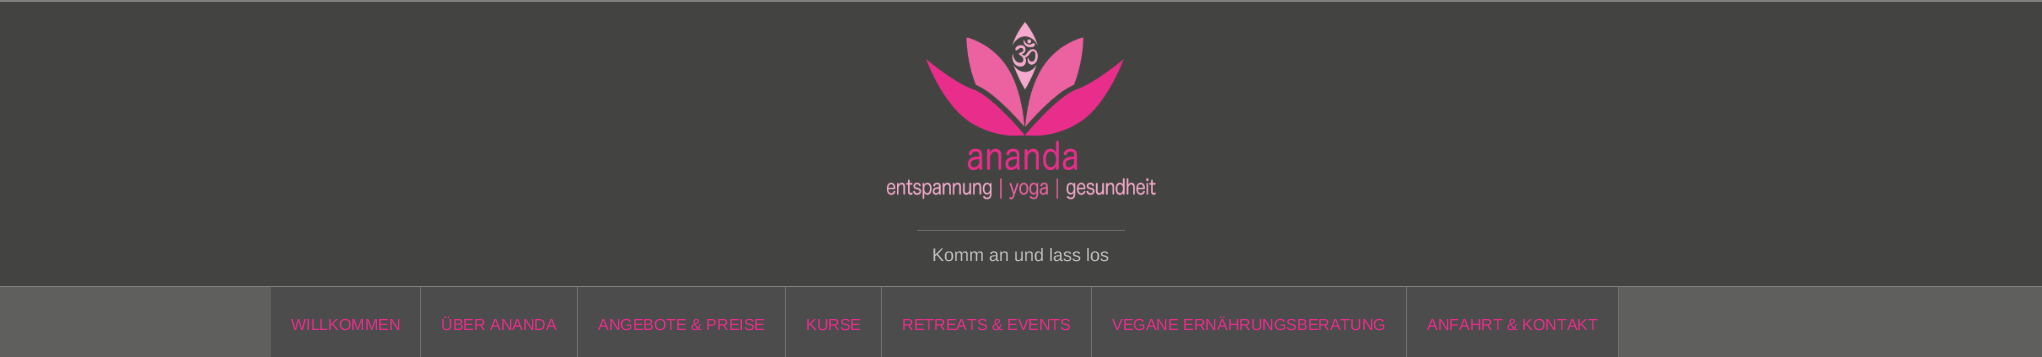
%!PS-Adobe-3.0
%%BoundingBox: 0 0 2042 357
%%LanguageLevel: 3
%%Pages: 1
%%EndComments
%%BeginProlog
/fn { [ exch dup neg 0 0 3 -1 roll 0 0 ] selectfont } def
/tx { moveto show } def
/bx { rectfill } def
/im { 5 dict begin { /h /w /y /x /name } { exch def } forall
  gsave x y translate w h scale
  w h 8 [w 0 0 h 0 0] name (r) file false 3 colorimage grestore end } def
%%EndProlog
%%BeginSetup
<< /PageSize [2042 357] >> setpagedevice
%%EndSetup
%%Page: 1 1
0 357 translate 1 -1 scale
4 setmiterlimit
0.263 0.267 0.255 setrgbcolor
0 0 2042 357 bx
0.498 0.502 0.494 setrgbcolor
0 0 2042 2 bx
(image0.raw) 886 22 270 178 im
0.412 0.412 0.404 setrgbcolor
917 230 208 1 bx
/LiberationSans-Regular 18 fn
0.733 setgray
(Komm an und lass los) 932 261 tx
0.373 0.376 0.369 setrgbcolor
0 287 2042 70 bx
0.498 0.502 0.494 setrgbcolor
0 286 2042 1 bx
0.298 setgray
271 287 149 70 bx
0.439 setgray
420 287 1 70 bx
/LiberationSans-Regular 16 fn
0.91 0.176 0.541 setrgbcolor
(WILLKOMMEN) 291 330 tx
0.298 setgray
421 287 156 70 bx
0.439 setgray
577 287 1 70 bx
0.91 0.176 0.541 setrgbcolor
(ÜBER ANANDA) 441 330 tx
0.298 setgray
578 287 207 70 bx
0.439 setgray
785 287 1 70 bx
0.91 0.176 0.541 setrgbcolor
(ANGEBOTE & PREISE) 598 330 tx
0.298 setgray
786 287 95 70 bx
0.439 setgray
881 287 1 70 bx
0.91 0.176 0.541 setrgbcolor
(KURSE) 806 330 tx
0.298 setgray
882 287 209 70 bx
0.439 setgray
1091 287 1 70 bx
0.91 0.176 0.541 setrgbcolor
(RETREATS & EVENTS) 902 330 tx
0.298 setgray
1092 287 314 70 bx
0.439 setgray
1406 287 1 70 bx
0.91 0.176 0.541 setrgbcolor
(VEGANE ERNÄHRUNGSBERATUNG) 1112 330 tx
0.298 setgray
1407 287 211 70 bx
0.439 setgray
1618 287 1 70 bx
0.91 0.176 0.541 setrgbcolor
(ANFAHRT & KONTAKT) 1427 330 tx
showpage
%%EOF
